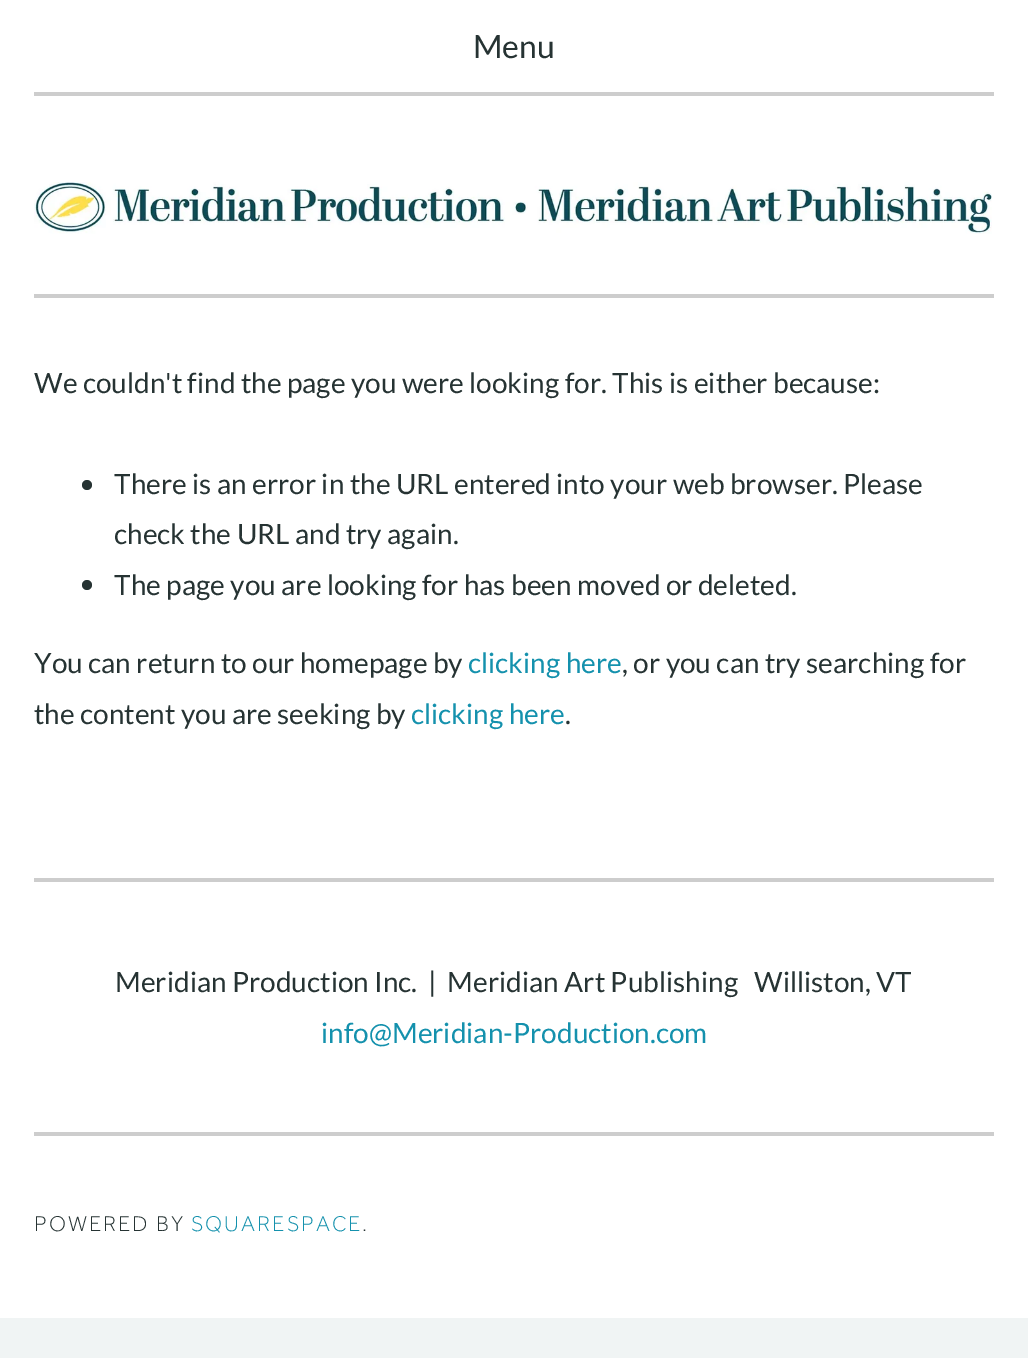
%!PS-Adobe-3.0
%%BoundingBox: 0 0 1028 1358
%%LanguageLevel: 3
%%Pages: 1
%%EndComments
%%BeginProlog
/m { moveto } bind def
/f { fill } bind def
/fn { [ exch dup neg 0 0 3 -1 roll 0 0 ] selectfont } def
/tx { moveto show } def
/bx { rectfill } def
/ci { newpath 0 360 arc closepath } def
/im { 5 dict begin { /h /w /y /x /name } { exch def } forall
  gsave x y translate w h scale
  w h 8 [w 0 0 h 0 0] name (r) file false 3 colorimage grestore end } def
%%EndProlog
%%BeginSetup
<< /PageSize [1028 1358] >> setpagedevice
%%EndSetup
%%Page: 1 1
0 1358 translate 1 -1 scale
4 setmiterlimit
0.941 0.957 0.957 setrgbcolor
0 0 1028 1358 bx
1 setgray
0 0 1028 1318 bx
0.804 setgray
34 92 960 4 bx
/Lato-Regular 32 fn
0.149 0.2 0.2 setrgbcolor
(Menu) 473 58 tx
(image0.raw) 34 182 958 52 im
0.804 setgray
34 294 960 4 bx
/Lato-Regular 28 fn
0.149 0.2 0.2 setrgbcolor
(We couldn't find the page you were looking for. This is either because:) 34 393 tx
87 485 5 ci f
(There is an error in the URL entered into your web browser. Please) 114 494 tx
(check the URL and try again.) 114 544 tx
87 585 5 ci f
(The page you are looking for has been moved or deleted.) 114 595 tx
(You can return to our homepage by) 34 673 tx
0.078 0.569 0.678 setrgbcolor
(clicking here) 468 673 tx
0.149 0.2 0.2 setrgbcolor
(, or you can try searching for) 622 673 tx
(the content you are seeking by) 34 724 tx
0.078 0.569 0.678 setrgbcolor
(clicking here) 411 724 tx
0.149 0.2 0.2 setrgbcolor
(.) 565 724 tx
0.804 setgray
34 878 960 4 bx
0.149 0.2 0.2 setrgbcolor
(Meridian Production Inc.  |  Meridian Art Publishing   Williston, VT) 115 992 tx
0.078 0.569 0.678 setrgbcolor
(info@Meridian-Production.com) 321 1043 tx
0.804 setgray
34 1132 960 4 bx
/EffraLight-Light 22 fn
0.149 0.2 0.2 setrgbcolor
34 1231 m 2 0 (POWERED BY) ashow
0.078 0.569 0.678 setrgbcolor
191 1231 m 2 0 (SQUARESPACE) ashow
0.149 0.2 0.2 setrgbcolor
362 1231 m 2 0 (.) ashow
showpage
%%EOF
